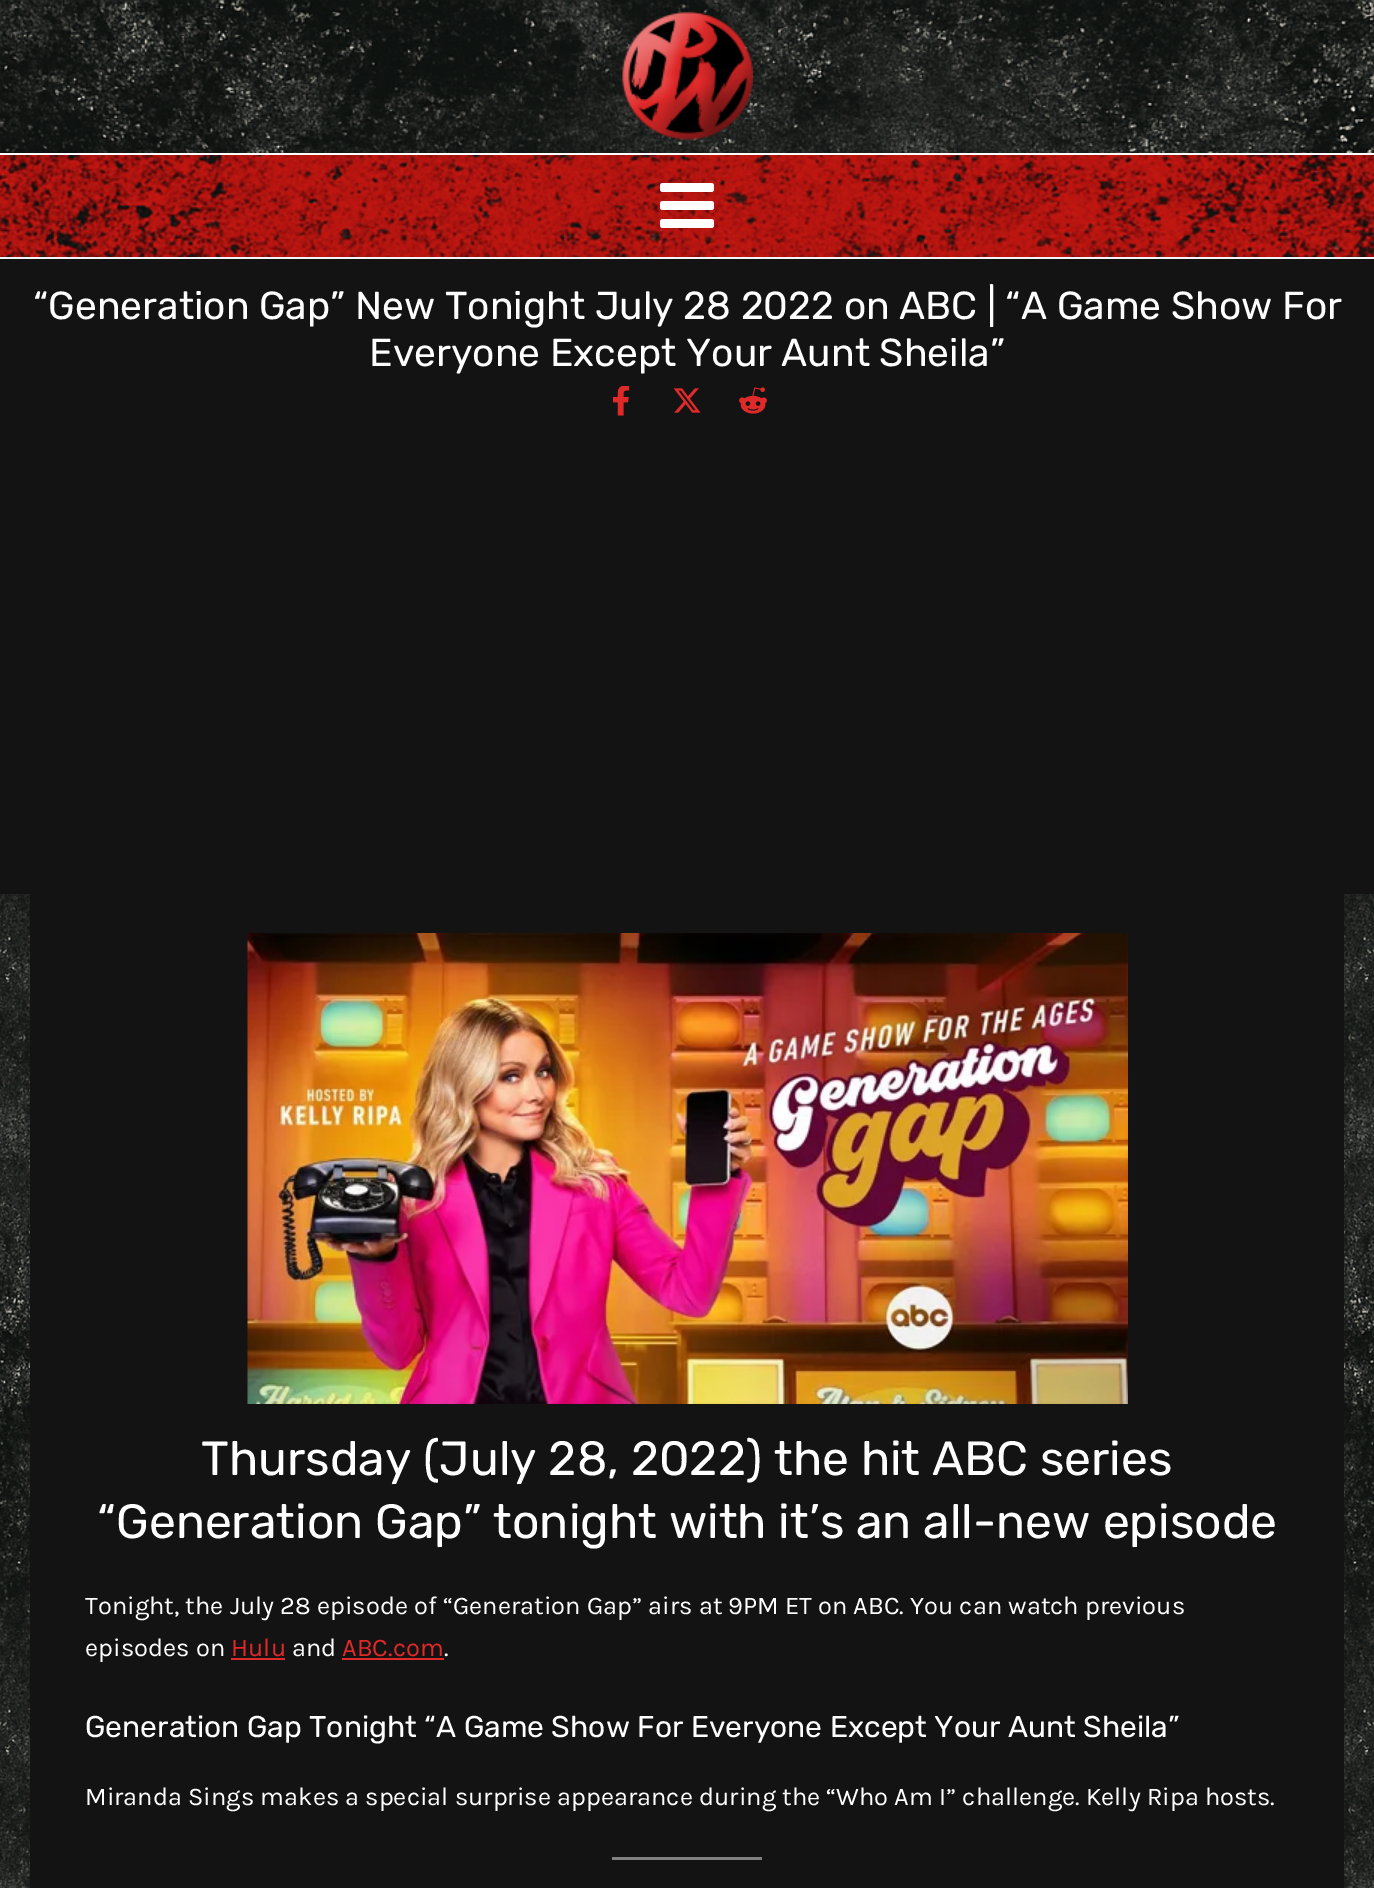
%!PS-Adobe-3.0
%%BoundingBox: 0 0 1374 1888
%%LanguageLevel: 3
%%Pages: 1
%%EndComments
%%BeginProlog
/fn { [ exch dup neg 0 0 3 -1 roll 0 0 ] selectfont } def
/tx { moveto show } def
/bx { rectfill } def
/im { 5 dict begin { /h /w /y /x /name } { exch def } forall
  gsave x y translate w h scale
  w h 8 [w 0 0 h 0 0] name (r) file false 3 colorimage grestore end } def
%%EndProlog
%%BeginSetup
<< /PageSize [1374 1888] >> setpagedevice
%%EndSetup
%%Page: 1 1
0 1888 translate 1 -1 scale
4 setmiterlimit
1 setgray
0 0 1374 1888 bx
(image0.raw) 0 894 1374 994 im
(image1.raw) 0 0 1374 153 im
(image2.raw) 622 11 131 129 im
(image3.raw) 0 155 1374 102 im
0.949 0.961 0.969 setrgbcolor
0 257 1374 2 bx
(image4.raw) 660 183 54 45 im
0.075 setgray
0 259 1374 635 bx
/Rubik-Regular 39 fn
1 setgray
(“Generation Gap” New Tonight July 28 2022 on ABC | “A Game Show For) 33 319 tx
(Everyone Except Your Aunt Sheila”) 369 366 tx
(image5.raw) 612 386 18 30 im
(image6.raw) 673 388 28 25 im
(image7.raw) 739 387 28 27 im
0.075 setgray
30 894 1314 994 bx
(image8.raw) 247 933 881 471 im
/Rubik-Regular 48 fn
1 setgray
(Thursday \(July 28, 2022\) the hit ABC series) 201 1475 tx
(“Generation Gap” tonight with it’s an all-new episode) 97 1538 tx
/Karla-Regular 25.5 fn
(Tonight, the July 28 episode of “Generation Gap” airs at 9PM ET on ABC. You can watch previous) 85 1614 tx
(episodes on) 85 1656 tx
0.878 0.161 0.161 setrgbcolor
(Hulu) 231 1656 tx
231 1658 54 2 bx
1 setgray
(and) 292 1656 tx
0.878 0.161 0.161 setrgbcolor
(ABC.com) 342 1656 tx
342 1658 102 2 bx
1 setgray
(.) 444 1656 tx
/Rubik-Regular 30 fn
(Generation Gap Tonight “A Game Show For Everyone Except Your Aunt Sheila”) 85 1737 tx
/Karla-Regular 25.5 fn
(Miranda Sings makes a special surprise appearance during the “Who Am I” challenge. Kelly Ripa hosts.) 85 1805 tx
0.502 setgray
612 1857 150 3 bx
showpage
%%EOF
